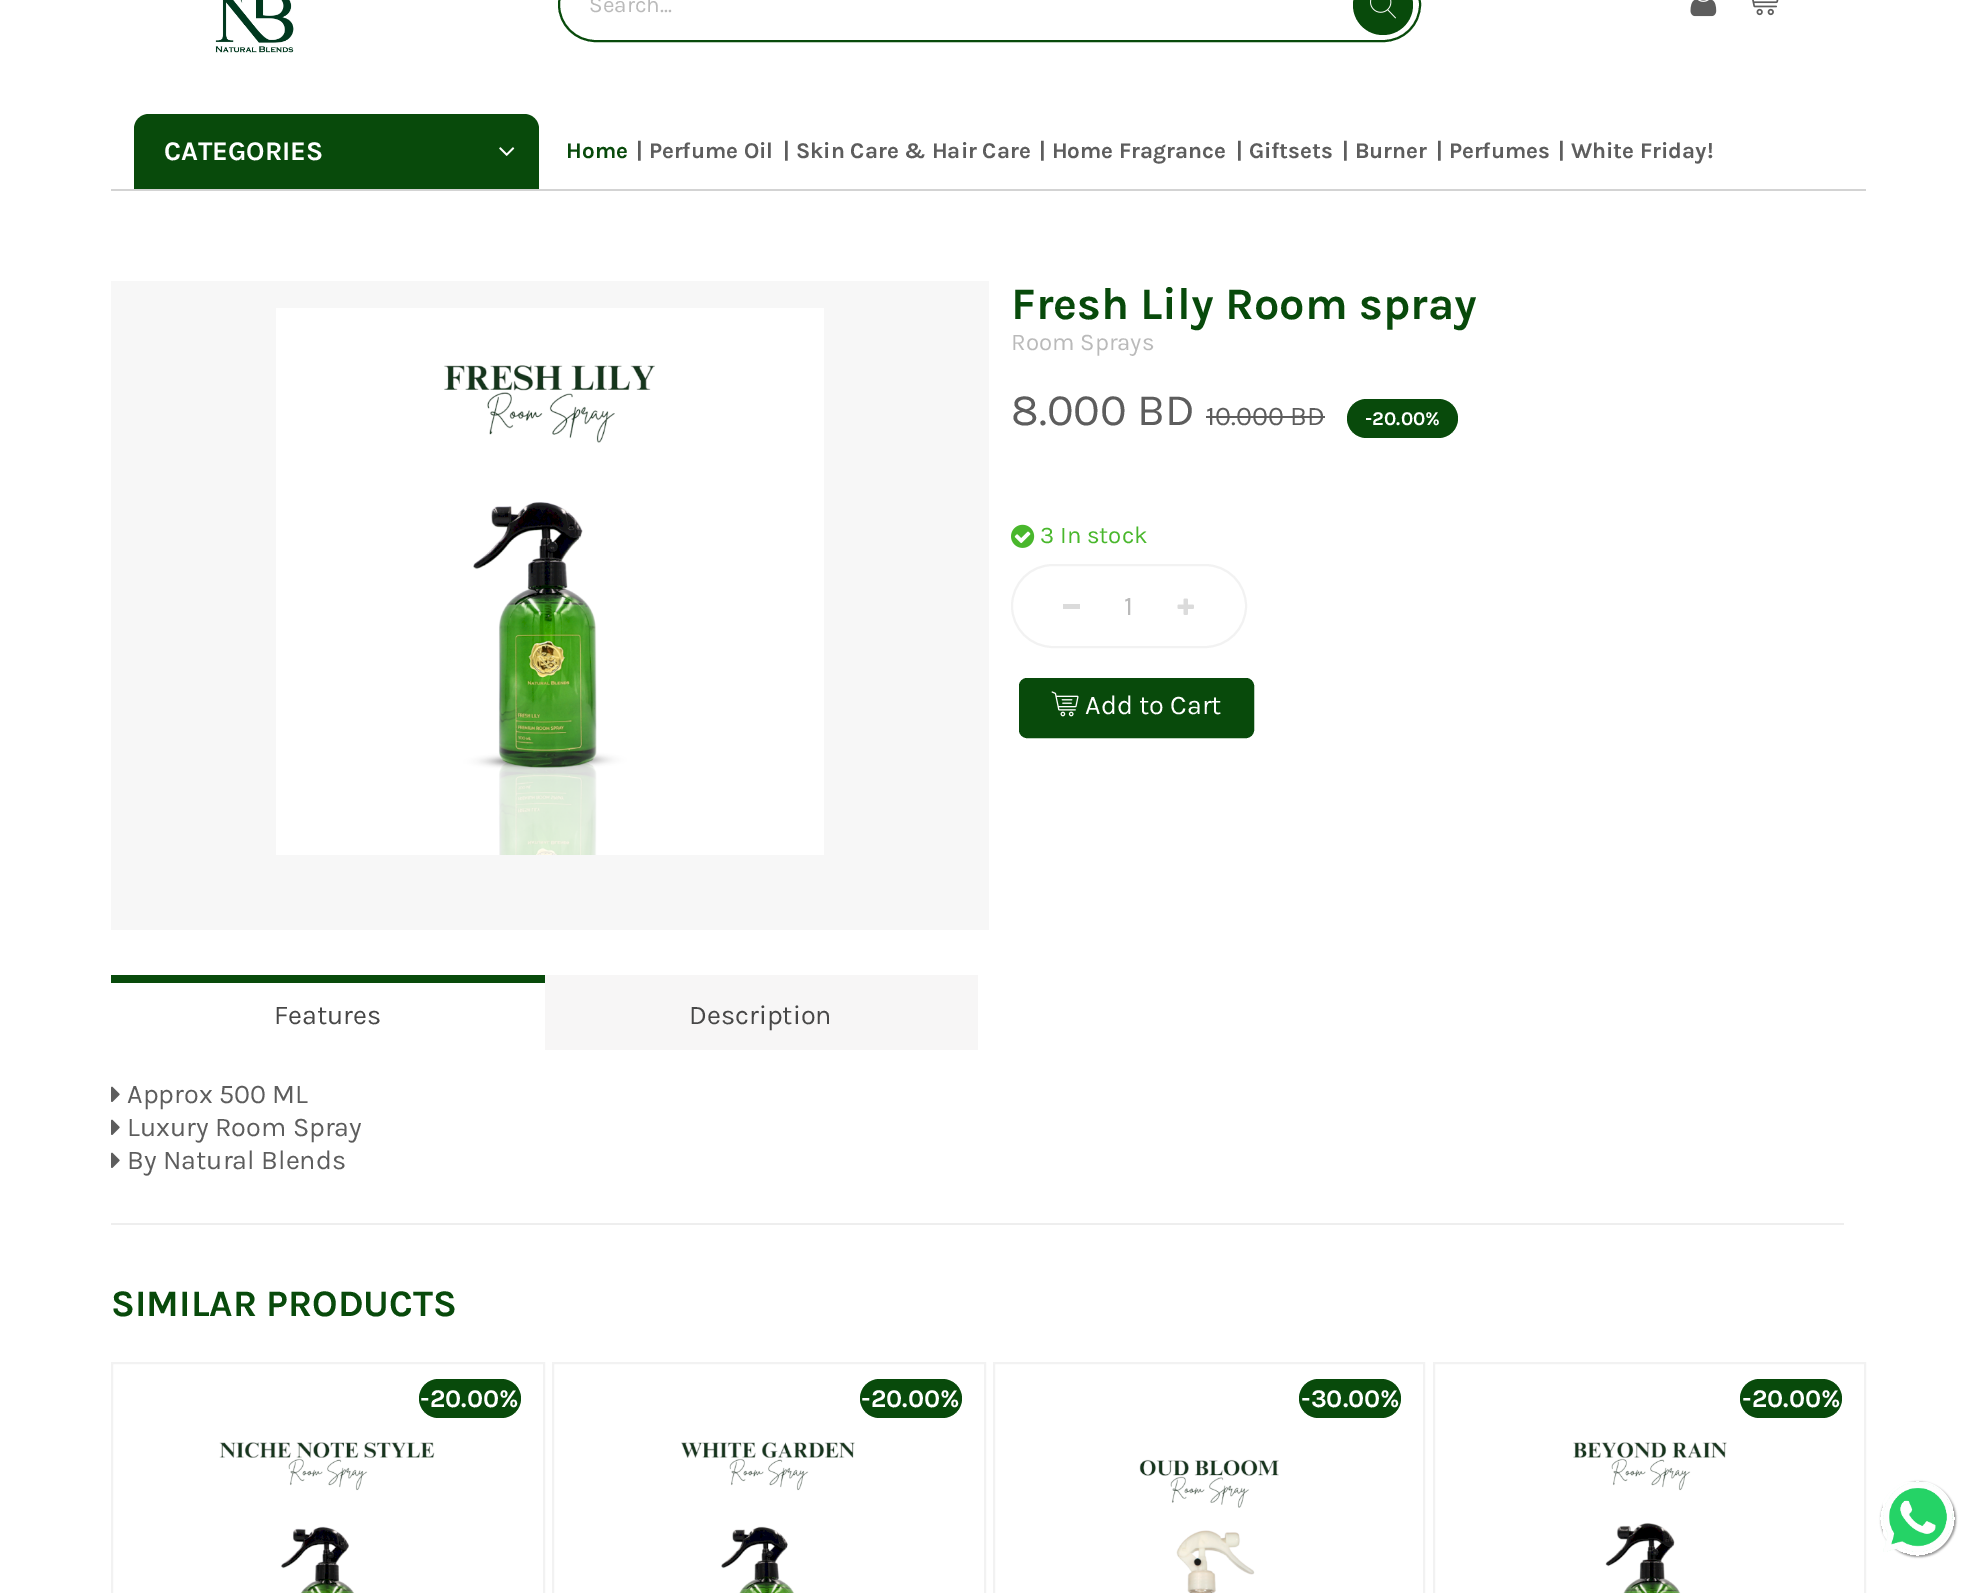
%!PS-Adobe-3.0
%%BoundingBox: 0 0 1977 1593
%%LanguageLevel: 3
%%Pages: 1
%%EndComments
%%BeginProlog
/m { moveto } bind def
/l { lineto } bind def
/c { curveto } bind def
/h { closepath } bind def
/f { fill } bind def
/S { stroke } bind def
/q { gsave } bind def
/Q { grestore } bind def
/w { setlinewidth } bind def
/fn { [ exch dup neg 0 0 3 -1 roll 0 0 ] selectfont } def
/tx { moveto show } def
/bx { rectfill } def
/al { dup .setfillconstantalpha .setstrokeconstantalpha } def
/ci { newpath 0 360 arc closepath } def
/rr { 5 dict begin { /r /h /w /y /x } { exch def } forall
  x r add y moveto x w add y 2 copy h add r arct x w add y h add x 1 index r arct
  x y h add x y r arct x y 2 copy exch w add exch r arct closepath end } def
/sh { 12 dict begin { /a /b /q /h /w /y /x } { exch def } forall gsave /was 0 def
  9 -2 -9 { dup b mul 4 div /e exch def 1 sub .425 mul 2.718 exch exp 1 add a .99 .min exch div /now exch def
    1 1 now sub 1 was sub div sub al /was now def
    w h .min e 2 mul add 0 gt { x e sub y e sub w e 2 mul add h e 2 mul add
      q e add b .6 mul add w h .min 2 div e add .min 0 .max rr fill } if } for grestore end } def
/im { 5 dict begin { /h /w /y /x /name } { exch def } forall
  gsave x y translate w h scale
  w h 8 [w 0 0 h 0 0] name (r) file false 3 colorimage grestore end } def
%%EndProlog
%%BeginSetup
<< /PageSize [1977 1593] /PageUsesTransparency true >> setpagedevice
%%EndSetup
%%Page: 1 1
0 .pushpdf14devicefilter
0 1593 translate 1 -1 scale
4 setmiterlimit
1 setgray
0 0 1977 1593 bx
(image0.raw) 215 0 79 53 im
0.031 0.29 0.043 setrgbcolor
2 w
559 -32 861 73 36.5 rr S
/Karla-Regular 22.5 fn
0.729 setgray
(Search...) 589 12 tx
0.031 0.29 0.043 setrgbcolor
1383 5 30 ci f
(image1.raw) 1370 0 26 19 im
(image2.raw) 1690 0 27 17 im
(image3.raw) 1752 0 27 16 im
0.827 setgray
111 189 1755 2 bx
0.031 0.29 0.043 setrgbcolor
149 114 m 524 114 l 532.5 114 539 120.5 539 129 c 539 189 l 134 189 l 134 129 l 134 120.5 140.5 114 149 114 c h f
/Karla-Bold 27 fn
1 setgray
(CATEGORIES) 164 160 tx
(image4.raw) 499 147 16 9 im
/Karla-Bold 22.5 fn
0.031 0.29 0.043 setrgbcolor
(Home) 566 158 tx
0.365 setgray
(| Perfume Oil) 636 158 tx
(| Skin Care & Hair Care) 783 158 tx
(| Home Fragrance) 1039 158 tx
(| Giftsets) 1236 158 tx
(| Burner) 1342 158 tx
(| Perfumes) 1436 158 tx
(| White Friday!) 1558 158 tx
0.969 setgray
111 281 878 649 bx
(image5.raw) 276 308 548 547 im
/Karla-Bold 45 fn
0.031 0.29 0.043 setrgbcolor
(Fresh Lily Room spray) 1011 319 tx
/Karla-Regular 24 fn
0.729 setgray
(Room Sprays) 1011 350 tx
/Karla-Regular 45 fn
0.365 setgray
(8.000 BD) 1011 425 tx
/Karla-Regular 27 fn
(10.000 BD) 1206 425 tx
1206 416 119 2 bx
0.031 0.29 0.043 setrgbcolor
1347 399 111 39 19.5 rr f
/Karla-Bold 19.5 fn
1 setgray
(-20.00%) 1365 425 tx
(image6.raw) 1011 524 24 24 im
/Karla-Regular 24 fn
0.286 0.718 0.173 setrgbcolor
(3 In stock) 1040 543 tx
0.949 setgray
1012 565 234 82 41 rr S
0.859 setgray
1063 604 17 5 bx
/Karla-Regular 27 fn
0.729 setgray
(1) 1124 615 tx
(image7.raw) 1177 598 17 17 im
0.031 0.29 0.043 setrgbcolor
1020.5 679.5 232 57 6.5 rr q f Q
3 w
S
(image8.raw) 1051 691 28 26 im
1 setgray
(Add to Cart) 1085 714 tx
0.031 0.29 0.043 setrgbcolor
111 975 434 8 bx
0.278 setgray
(Features) 274 1024 tx
0.969 0.965 0.965 setrgbcolor
545 975 433 75 bx
0.278 setgray
(Description) 689 1024 tx
(image9.raw) 111 1086 9 16 im
0.365 setgray
(Approx 500 ML) 127 1103 tx
(image9.raw) 111 1119 9 16 im
(Luxury Room Spray) 127 1136 tx
(image9.raw) 111 1152 9 16 im
(By Natural Blends) 127 1169 tx
0.933 setgray
111 1223 1733 2 bx
/Karla-Bold 37.5 fn
0.031 0.29 0.043 setrgbcolor
(SIMILAR PRODUCTS) 111 1316 tx
0.949 setgray
2 w
112 1363 432 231 rectstroke
0.031 0.29 0.043 setrgbcolor
419 1379 102 39 19.5 rr f
/Karla-Bold 25.5 fn
1 setgray
(-20.00%) 420 1407 tx
(image10.raw) 219 1442 216 151 im
0.949 setgray
553 1363 432 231 rectstroke
0.031 0.29 0.043 setrgbcolor
860 1379 102 39 19.5 rr f
1 setgray
(-20.00%) 861 1407 tx
(image11.raw) 681 1442 174 151 im
0.949 setgray
994 1363 430 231 rectstroke
0.031 0.29 0.043 setrgbcolor
1299 1379 102 39 19.5 rr f
1 setgray
(-30.00%) 1301 1407 tx
(image12.raw) 1139 1459 140 134 im
0.949 setgray
1434 1363 431 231 rectstroke
0.031 0.29 0.043 setrgbcolor
1740 1379 102 39 19.5 rr f
1 setgray
(-20.00%) 1742 1407 tx
(image13.raw) 1573 1442 154 151 im
q
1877 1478 m 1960 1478 l 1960 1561 l 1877 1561 l h 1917.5 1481 m 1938 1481 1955 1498 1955 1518.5 c 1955 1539 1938 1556 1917.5 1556 c 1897 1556 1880 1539 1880 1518.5 c 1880 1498 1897 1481 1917.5 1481 c h eoclip newpath
0.6 setgray
1881 1482 75 75 37.5 1 1 sh
Q
(image14.raw) 1883 1482 70 70 im
.poppdf14devicefilter showpage
%%EOF
